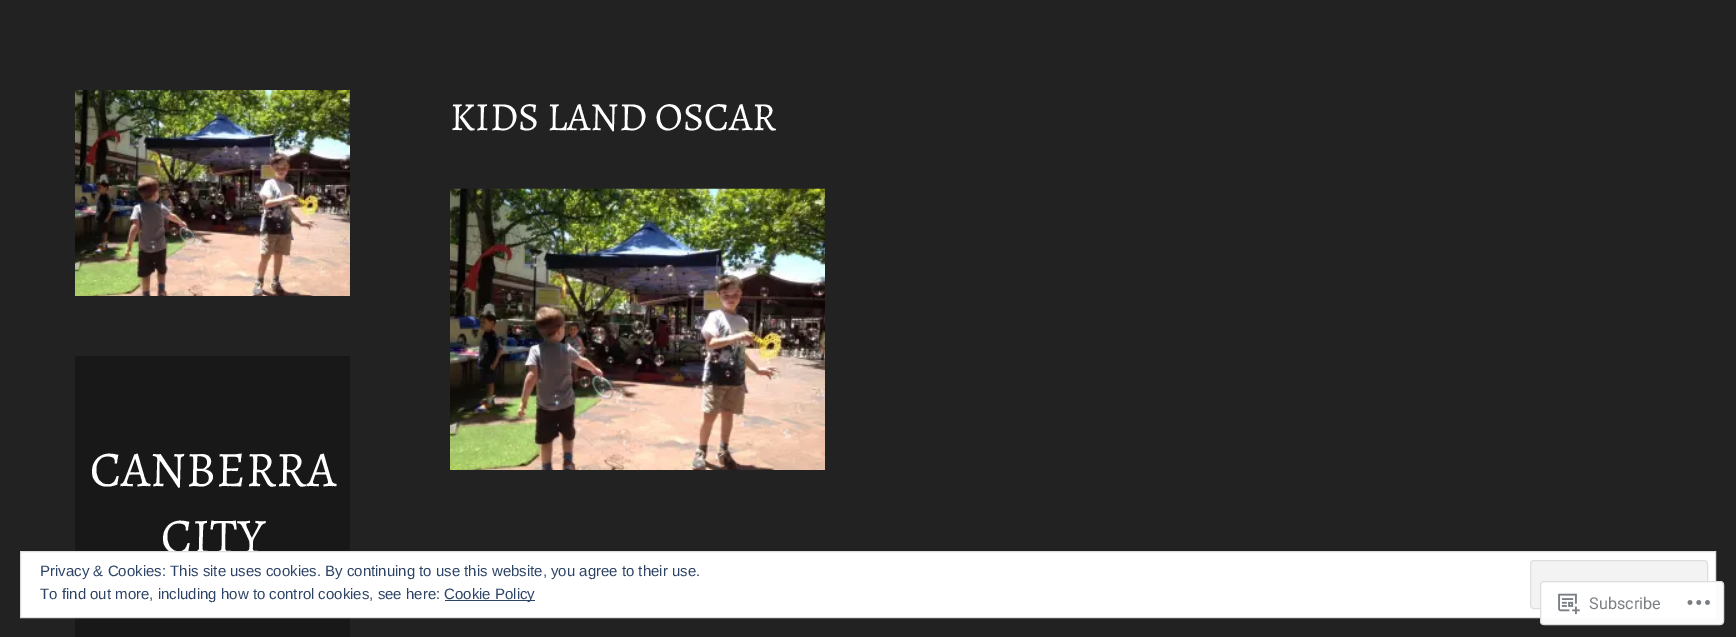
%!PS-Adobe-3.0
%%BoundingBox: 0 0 1736 637
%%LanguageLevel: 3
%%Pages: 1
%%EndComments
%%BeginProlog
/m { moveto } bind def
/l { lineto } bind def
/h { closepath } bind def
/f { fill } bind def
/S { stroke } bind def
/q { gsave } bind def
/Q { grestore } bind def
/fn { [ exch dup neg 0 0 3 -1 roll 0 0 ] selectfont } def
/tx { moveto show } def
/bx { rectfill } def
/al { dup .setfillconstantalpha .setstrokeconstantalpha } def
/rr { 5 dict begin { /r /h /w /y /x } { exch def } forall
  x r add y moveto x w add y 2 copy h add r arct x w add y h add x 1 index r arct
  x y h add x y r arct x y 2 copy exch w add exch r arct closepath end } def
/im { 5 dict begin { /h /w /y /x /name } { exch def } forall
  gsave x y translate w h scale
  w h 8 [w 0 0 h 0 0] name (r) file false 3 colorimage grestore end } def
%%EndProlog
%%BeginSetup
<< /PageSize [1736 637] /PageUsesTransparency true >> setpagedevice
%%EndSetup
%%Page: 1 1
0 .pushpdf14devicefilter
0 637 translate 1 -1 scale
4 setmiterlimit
0.133 setgray
0 0 1736 637 bx
/Alegreya-Regular 40 fn
1 setgray
(KIDS LAND OSCAR) 450 130 tx
(image0.raw) 450 188 375 282 im
(image1.raw) 75 90 275 206 im
0.094 setgray
75 356 275 281 bx
/Alegreya-Regular 50 fn
1 setgray
(CANBERRA) 90 486 tx
(CITY) 161 553 tx
20.5 551.5 m 1715.5 551.5 l 1715.5 617.5 l 20.5 617.5 l h q f Q
0.871 setgray
S
/Arimo-Regular 15 fn
0.18 0.267 0.404 setrgbcolor
(Privacy & Cookies: This site uses cookies. By continuing to use this website, you agree to their use.) 40 576 tx
0.953 setgray
1530.5 560.5 177 48 3.5 rr q f Q
0.871 setgray
S
0.18 0.267 0.404 setrgbcolor
(To find out more, including how to control cookies, see here:) 40 599 tx
445 600 90 1 bx
(Cookie Policy) 444 599 tx
0.98 al
1 setgray
1540 581 184 44 4 rr f
0.863 0.863 0.871 setrgbcolor
1540.5 581.5 183 43 3.5 rr S
1 al
(image2.raw) 1558 593 22 22 im
/Roboto-Regular 16.25 fn
0.482 0.498 0.518 setrgbcolor
(Subscribe) 1589 609 tx
(image3.raw) 1687 600 23 5 im
.poppdf14devicefilter showpage
%%EOF
